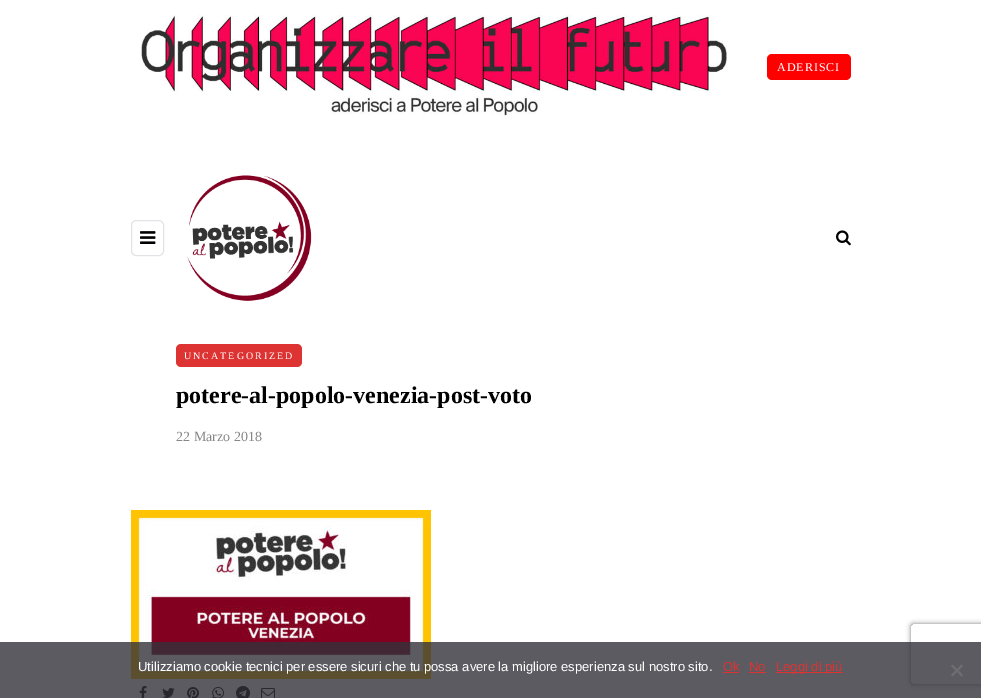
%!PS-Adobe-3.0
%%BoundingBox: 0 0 981 698
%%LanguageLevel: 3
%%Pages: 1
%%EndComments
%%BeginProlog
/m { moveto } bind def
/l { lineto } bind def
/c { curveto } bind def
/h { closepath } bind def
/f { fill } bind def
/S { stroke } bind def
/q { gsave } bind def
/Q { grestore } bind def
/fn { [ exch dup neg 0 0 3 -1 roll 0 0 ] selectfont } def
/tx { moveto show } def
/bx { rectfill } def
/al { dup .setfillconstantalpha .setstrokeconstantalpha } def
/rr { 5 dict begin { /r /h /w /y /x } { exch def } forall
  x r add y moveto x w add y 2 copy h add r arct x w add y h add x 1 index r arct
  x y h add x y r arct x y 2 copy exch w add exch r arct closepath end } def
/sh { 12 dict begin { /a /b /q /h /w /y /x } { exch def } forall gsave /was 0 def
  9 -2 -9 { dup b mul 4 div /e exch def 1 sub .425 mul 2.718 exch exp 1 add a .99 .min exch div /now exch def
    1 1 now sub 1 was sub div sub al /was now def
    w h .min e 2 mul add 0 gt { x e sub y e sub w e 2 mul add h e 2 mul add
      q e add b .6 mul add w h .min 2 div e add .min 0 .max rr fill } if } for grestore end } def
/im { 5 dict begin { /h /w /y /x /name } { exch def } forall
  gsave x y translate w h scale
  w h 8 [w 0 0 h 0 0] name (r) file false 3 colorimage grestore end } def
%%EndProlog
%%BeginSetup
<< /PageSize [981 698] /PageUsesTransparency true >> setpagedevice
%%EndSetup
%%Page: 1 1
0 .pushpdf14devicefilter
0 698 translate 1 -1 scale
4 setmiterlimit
1 setgray
0 0 981 698 bx
(image0.raw) 141 15 586 102 im
1 0 0 setrgbcolor
767 54 84 26 5 rr f
/LiberationSerif-Regular 12 fn
1 setgray
777 71 m 1 0 (ADERISCI) ashow
0.886 0.89 0.906 setrgbcolor
131.5 220.5 32 35 4.5 rr S
(image1.raw) 140 231 16 13 im
(image2.raw) 187 175 125 126 im
(image3.raw) 836 230 15 16 im
0.867 0.2 0.2 setrgbcolor
176 344 126 23 5 rr f
/LiberationSerif-Regular 10 fn
1 setgray
184 359 m 2 0 (UNCATEGORIZED) ashow
/LiberationSerif-Bold 24 fn
0 setgray
(potere-al-popolo-venezia-post-voto) 176 403 tx
/LiberationSerif-Regular 14 fn
0.525 setgray
(22 Marzo 2018) 176 441 tx
(image4.raw) 131 510 300 169 im
(image5.raw) 139 686 8 12 im
(image6.raw) 162 688 13 10 im
(image7.raw) 187 687 12 11 im
(image8.raw) 212 687 12 11 im
(image9.raw) 236 686 14 12 im
(image10.raw) 261 688 14 10 im
q
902 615 m 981 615 l 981 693 l 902 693 l h 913 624 m 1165 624 l 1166 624 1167 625 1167 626 c 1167 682 l 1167 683 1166 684 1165 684 c 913 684 l 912 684 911 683 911 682 c 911 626 l 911 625 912 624 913 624 c h eoclip newpath
0.502 setgray
911 624 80 60 2 2.5 1 sh
Q
0.8 al
0.196 0.196 0.227 setrgbcolor
0 642 981 56 bx
/LiberationSans-Regular 13 fn
1 al
1 setgray
(Utilizziamo cookie tecnici per essere sicuri che tu possa avere la migliore esperienza sul nostro sito.) 138 671 tx
0.867 0.2 0.2 setrgbcolor
(Ok) 723 671 tx
723 672 16 1 bx
(No) 749 671 tx
749 672 17 1 bx
776 672 67 1 bx
(Leggi di più) 776 671 tx
0.431 0.431 0.443 setrgbcolor
961.5 664.5 m 963 666 l 952.5 676.5 l 951 675 l h f
951 666 m 952.5 664.5 l 963 675 l 961.5 676.5 l h f
.poppdf14devicefilter showpage
%%EOF
